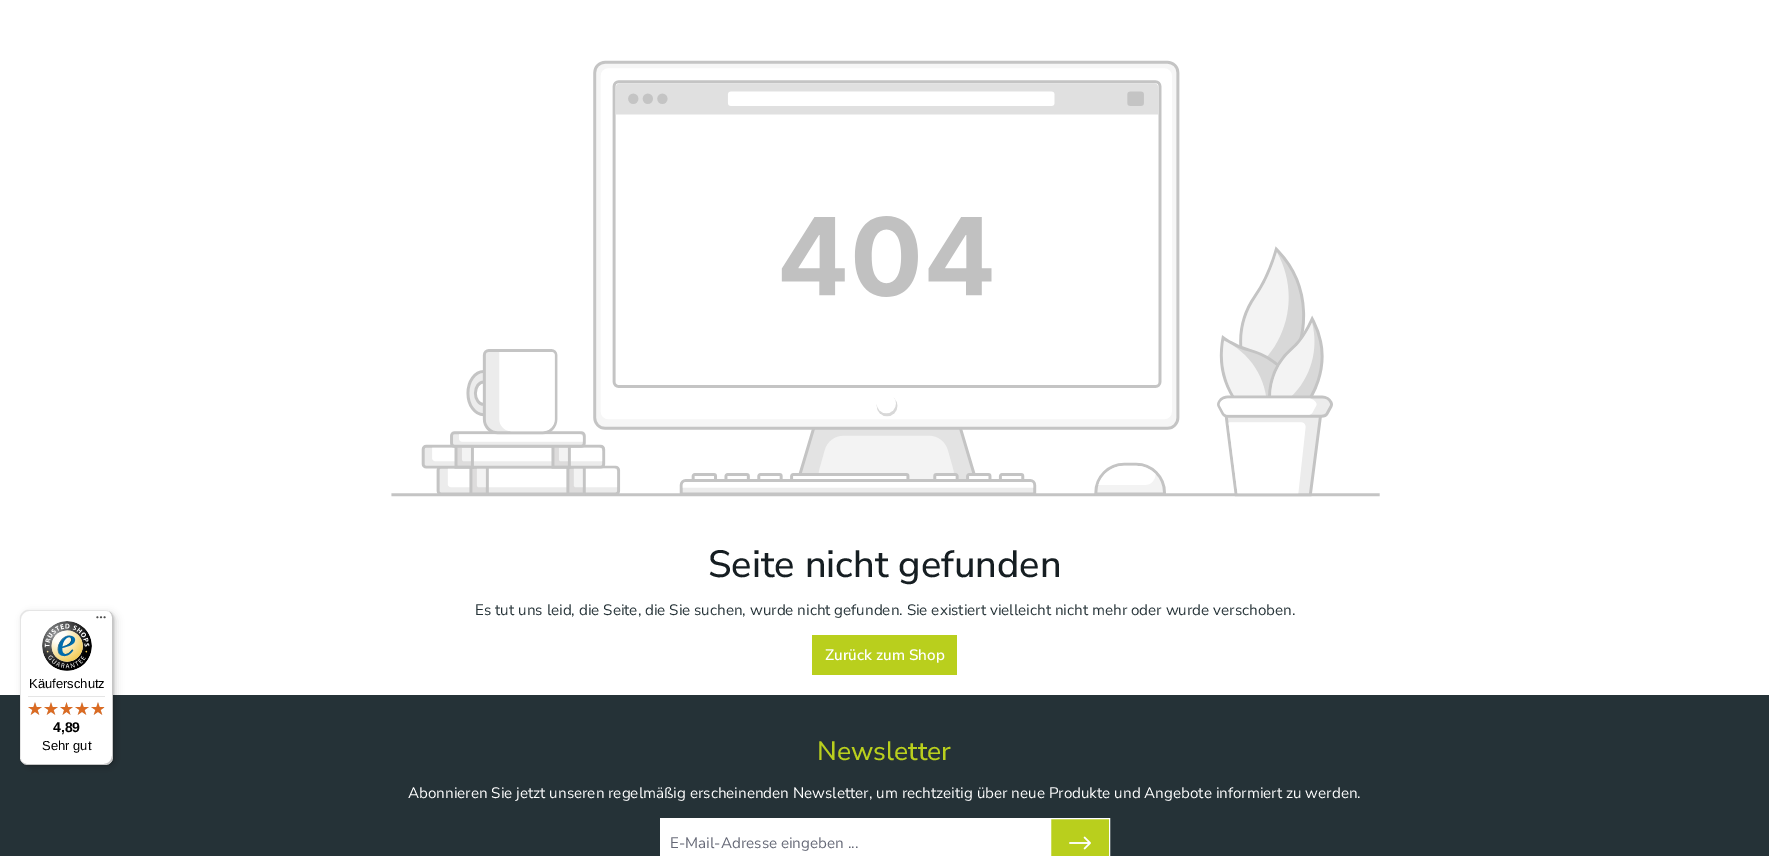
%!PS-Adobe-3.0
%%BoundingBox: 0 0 1769 856
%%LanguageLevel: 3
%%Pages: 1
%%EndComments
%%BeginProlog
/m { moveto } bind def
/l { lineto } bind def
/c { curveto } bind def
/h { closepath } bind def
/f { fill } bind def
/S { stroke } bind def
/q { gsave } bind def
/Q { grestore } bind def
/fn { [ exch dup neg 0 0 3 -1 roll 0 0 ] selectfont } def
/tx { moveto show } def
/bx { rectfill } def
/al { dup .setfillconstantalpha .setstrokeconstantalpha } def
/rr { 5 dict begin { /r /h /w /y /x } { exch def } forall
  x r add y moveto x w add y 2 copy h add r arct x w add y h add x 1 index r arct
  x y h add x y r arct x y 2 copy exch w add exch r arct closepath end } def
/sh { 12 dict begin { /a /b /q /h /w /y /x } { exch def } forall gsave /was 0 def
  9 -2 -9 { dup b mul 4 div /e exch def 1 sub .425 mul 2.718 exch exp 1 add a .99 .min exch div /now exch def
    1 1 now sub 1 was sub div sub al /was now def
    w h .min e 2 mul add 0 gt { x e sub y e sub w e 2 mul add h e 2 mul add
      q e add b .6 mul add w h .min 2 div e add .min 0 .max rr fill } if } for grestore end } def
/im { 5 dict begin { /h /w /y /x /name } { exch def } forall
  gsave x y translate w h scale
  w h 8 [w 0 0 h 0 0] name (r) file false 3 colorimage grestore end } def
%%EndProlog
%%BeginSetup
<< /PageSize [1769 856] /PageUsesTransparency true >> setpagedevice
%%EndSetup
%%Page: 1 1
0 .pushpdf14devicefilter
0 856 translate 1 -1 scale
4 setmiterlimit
1 setgray
0 0 1769 856 bx
(image0.raw) 391 60 989 437 im
/NunitoSans-Medium 38 fn
0.086 0.118 0.133 setrgbcolor
(Seite nicht gefunden) 708 577 tx
/NunitoSans-Regular 15.2 fn
0.145 0.196 0.216 setrgbcolor
(Es tut uns leid, die Seite, die Sie suchen, wurde nicht gefunden. Sie existiert vielleicht nicht mehr oder wurde verschoben.) 475 615 tx
0.725 0.812 0.114 setrgbcolor
812 635 145 40 bx
/NunitoSans-SemiBold 15.2 fn
1 setgray
(Zurück zum Shop) 825 660 tx
0.145 0.196 0.216 setrgbcolor
0 695 1769 161 bx
0 setgray
23 613 93 155 8 4 0.15 sh
21 611 93 155 8 1 0.15 sh
1 setgray
20 610 93 155 8 rr f
0.1 al
0 setgray
29 611 m 106 611 l 108 611 110 612 112 614 c 110 612 108 610 105 610 c 28 610 l 24 610 20 614 20 618 c 20 757 l 20 760 22 762 24 764 c 22 762 21 760 21 758 c 21 619 l 21 615 25 611 29 611 c h f
0.2 al
21 761 m 23 763 25 765 28 765 c 105 765 l 109 765 113 761 113 757 c 113 618 l 113 615 111 613 109 611 c 111 613 112 615 112 617 c 112 756 l 112 760 108 764 104 764 c 27 764 l 25 764 23 763 21 761 c h f
0.196 setgray
22 762 m 23 764 26 765 28 765 c 105 765 l 109 765 113 761 113 757 c 113 618 l 113 616 112 613 110 612 c 111 613 112 615 112 617 c 112 756 l 112 761 109 764 104 764 c 27 764 l 25 764 23 763 22 762 c h f
0.3 al
1 setgray
112 618 m 112 613 109 610 104 610 c 105 610 l 109 610 113 614 113 618 c 113 757 l 113 761 109 765 105 765 c 28 765 l 24 765 20 761 20 757 c 20 756 l 20 761 23 764 28 764 c 104 764 l 109 764 112 761 112 756 c h f
1 al
(image1.raw) 96 616 10 3 im
(image2.raw) 42 621 50 50 im
/LiberationSans-Regular 13 fn
0 setgray
(Käuferschutz) 29 688 tx
0.898 setgray
28 696 77 1 bx
(image3.raw) 28 702 14 13 im
(image3.raw) 44 702 14 13 im
(image4.raw) 60 702 13 13 im
(image3.raw) 75 702 14 13 im
(image3.raw) 91 702 14 13 im
(image5.raw) 28 702 14 13 im
(image5.raw) 44 702 14 13 im
(image6.raw) 60 702 13 13 im
(image5.raw) 75 702 14 13 im
(image7.raw) 91 702 13 13 im
/LiberationSans-Bold 14 fn
0 setgray
(4,89) 53 732 tx
/LiberationSans-Regular 13 fn
(Sehr gut) 42 750 tx
/NunitoSans-Medium 26.5 fn
0.725 0.812 0.114 setrgbcolor
(Newsletter) 817 760 tx
/NunitoSans-Regular 15.2 fn
1 setgray
(Abonnieren Sie jetzt unseren regelmäßig erscheinenden Newsletter, um rechtzeitig über neue Produkte und Angebote informiert zu werden.) 408 798 tx
661 819 389 37 bx
660 818 390 1 bx
660 818 1 38 bx
0.4 0.412 0.467 setrgbcolor
(E-Mail-Adresse eingeben ...) 670 848 tx
0.725 0.812 0.114 setrgbcolor
1050.5 818.5 m 1109.5 818.5 l 1109.5 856.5 l 1050.5 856.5 l h q f Q
1 setgray
S
(image8.raw) 1069 836 22 14 im
.poppdf14devicefilter showpage
%%EOF
